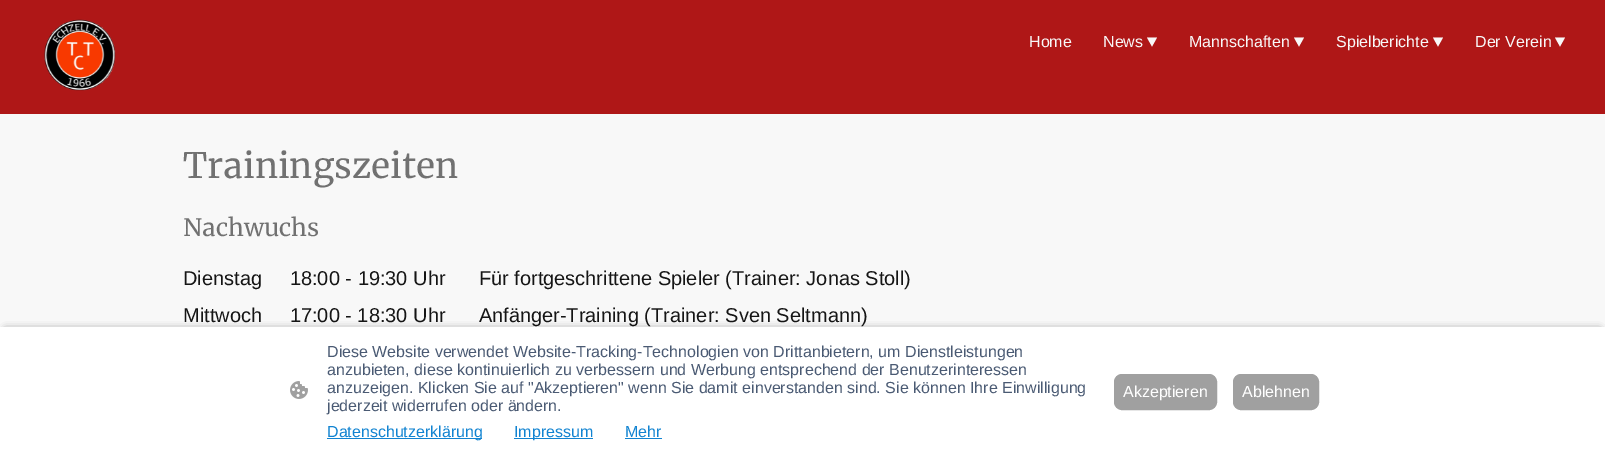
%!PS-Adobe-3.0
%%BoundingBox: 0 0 1605 457
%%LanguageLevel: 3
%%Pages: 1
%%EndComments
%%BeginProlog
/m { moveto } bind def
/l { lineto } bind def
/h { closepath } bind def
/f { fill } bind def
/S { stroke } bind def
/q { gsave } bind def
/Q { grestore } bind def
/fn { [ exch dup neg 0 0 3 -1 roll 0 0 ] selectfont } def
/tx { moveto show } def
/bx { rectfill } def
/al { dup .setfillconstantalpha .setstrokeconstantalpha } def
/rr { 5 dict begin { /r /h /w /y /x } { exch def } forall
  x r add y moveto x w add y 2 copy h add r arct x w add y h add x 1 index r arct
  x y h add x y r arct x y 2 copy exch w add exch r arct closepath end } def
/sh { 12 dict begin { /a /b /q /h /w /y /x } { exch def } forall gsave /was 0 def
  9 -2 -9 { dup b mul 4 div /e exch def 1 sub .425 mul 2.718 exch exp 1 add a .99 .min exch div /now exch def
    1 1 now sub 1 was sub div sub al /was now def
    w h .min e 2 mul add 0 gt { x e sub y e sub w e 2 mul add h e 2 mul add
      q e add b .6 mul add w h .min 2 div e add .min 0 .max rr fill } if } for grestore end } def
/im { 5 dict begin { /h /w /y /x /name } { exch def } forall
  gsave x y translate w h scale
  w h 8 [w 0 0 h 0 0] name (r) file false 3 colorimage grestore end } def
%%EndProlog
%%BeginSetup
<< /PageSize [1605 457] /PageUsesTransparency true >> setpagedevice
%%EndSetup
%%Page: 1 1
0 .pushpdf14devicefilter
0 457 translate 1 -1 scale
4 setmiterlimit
0.973 setgray
0 0 1605 457 bx
0.686 0.09 0.09 setrgbcolor
0 0 1605 114 bx
(image0.raw) 44 19 72 72 im
/LiberationSans-Regular 16 fn
0.973 setgray
(Home) 1029 47 tx
(News) 1103 47 tx
1157 37.5 m 1152 46.5 l 1147 37.5 l h f
(Mannschaften) 1189 47 tx
1304 37.5 m 1299 46.5 l 1294 37.5 l h f
(Spielberichte) 1336 47 tx
1443 37.5 m 1438 46.5 l 1433 37.5 l h f
(Der Verein) 1475 47 tx
1565 37.5 m 1560 46.5 l 1555 37.5 l h f
/Merriweather-Regular 35 fn
0.443 setgray
(Trainingszeiten) 183 178 tx
/Merriweather-Regular 24 fn
(Nachwuchs) 183 236 tx
/LiberationSans-Regular 20 fn
0.082 setgray
(Dienstag     18:00 - 19:30 Uhr      Für fortgeschrittene Spieler \(Trainer: Jonas Stoll\)) 183 285 tx
(Mittwoch     17:00 - 18:30 Uhr      Anfänger-Training \(Trainer: Sven Seltmann\)) 183 322 tx
0 setgray
6 330 1593 118 0 4 0.63 sh
1 setgray
0 327 1605 130 bx
(image1.raw) 290 381 18 18 im
/LiberationSans-Regular 16 fn
0.29 0.353 0.451 setrgbcolor
(Diese Website verwendet Website-Tracking-Technologien von Drittanbietern, um Dienstleistungen) 327 357 tx
(anzubieten, diese kontinuierlich zu verbessern und Werbung entsprechend der Benutzerinteressen) 327 375 tx
(anzuzeigen. Klicken Sie auf "Akzeptieren" wenn Sie damit einverstanden sind. Sie können Ihre Einwilligung) 327 393 tx
(jederzeit widerrufen oder ändern.) 327 411 tx
0.067 0.514 0.82 setrgbcolor
327 438 155 1 bx
(Datenschutzerklärung) 327 437 tx
514 438 79 1 bx
(Impressum) 514 437 tx
(Mehr) 625 437 tx
625 438 37 1 bx
0.627 setgray
1114.5 374.5 102 35 7.5 rr q f Q
S
1 setgray
(Akzeptieren) 1123 397 tx
0.627 setgray
1233.5 374.5 85 35 7.5 rr q f Q
S
1 setgray
(Ablehnen) 1242 397 tx
.poppdf14devicefilter showpage
%%EOF
